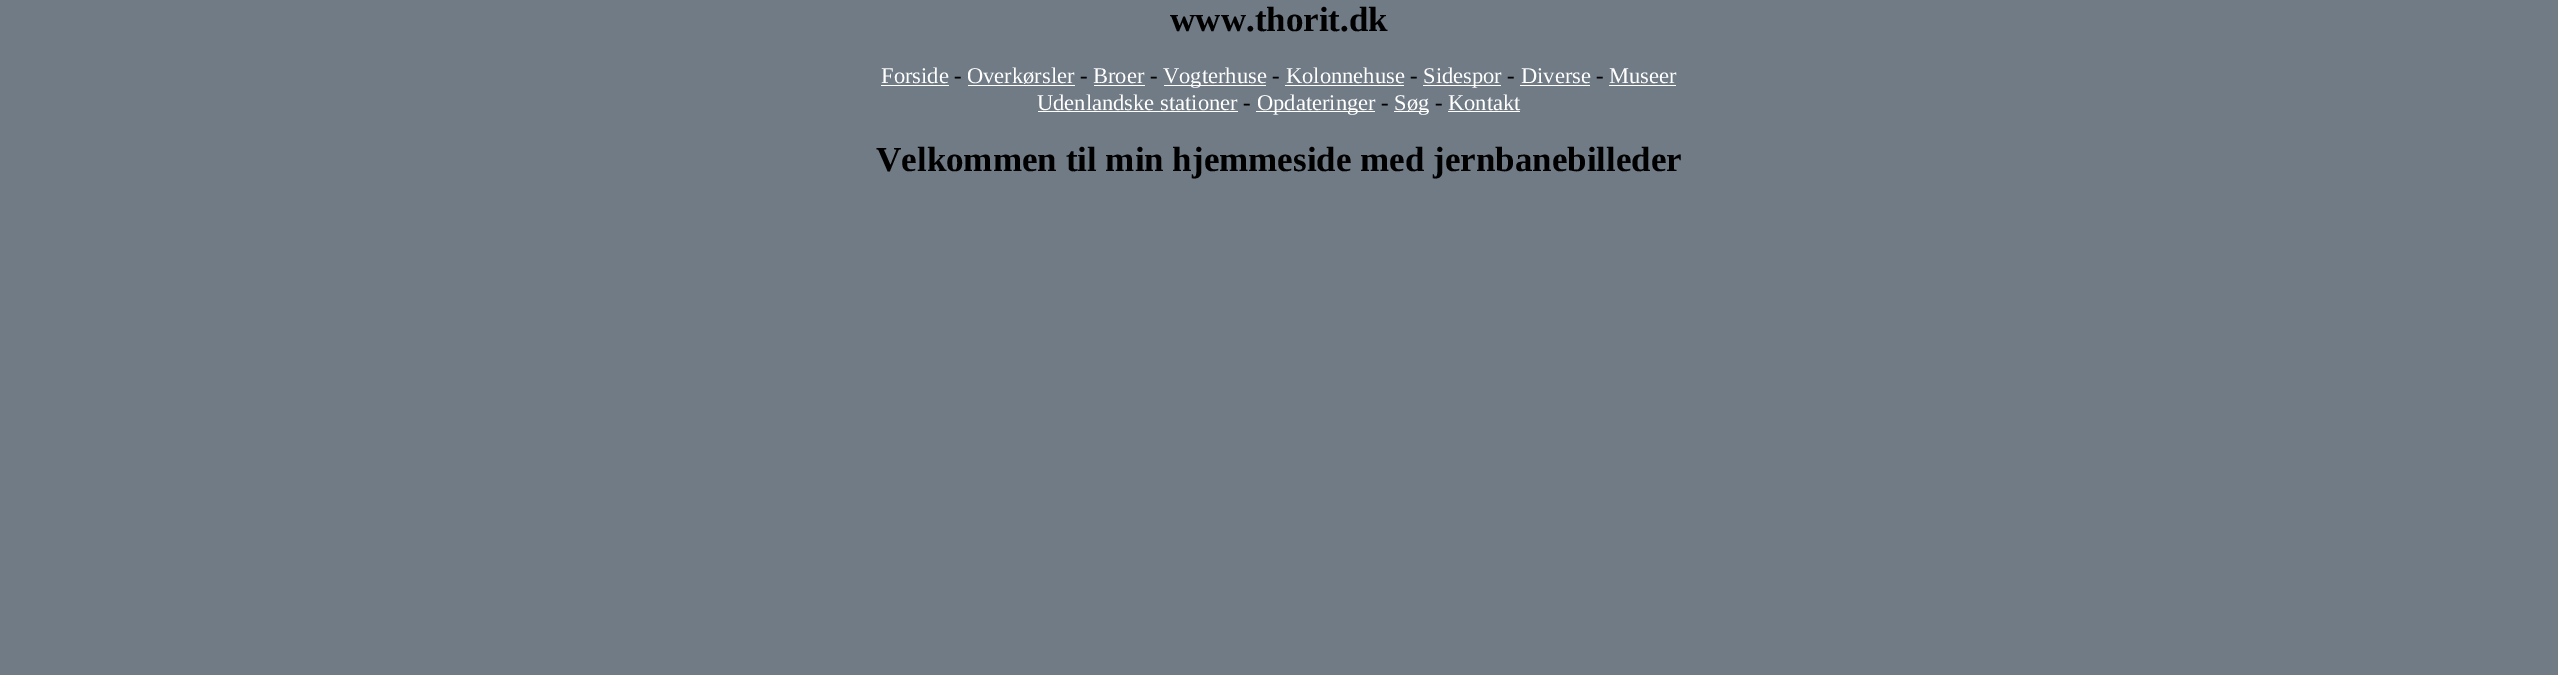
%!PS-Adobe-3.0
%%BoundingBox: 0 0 2558 675
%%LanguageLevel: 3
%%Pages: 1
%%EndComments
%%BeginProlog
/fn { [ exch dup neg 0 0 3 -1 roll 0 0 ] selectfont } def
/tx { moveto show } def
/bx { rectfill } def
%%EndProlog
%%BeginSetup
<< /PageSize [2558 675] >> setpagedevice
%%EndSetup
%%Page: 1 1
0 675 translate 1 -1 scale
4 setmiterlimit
0.439 0.482 0.522 setrgbcolor
0 0 2558 675 bx
/LiberationSerif-Bold 35 fn
0 setgray
(www.thorit.dk) 1170 31 tx
/LiberationSerif-Regular 22.5 fn
1 setgray
(Forside) 881 83 tx
881 85 68 1 bx
0 setgray
(-) 954 83 tx
1 setgray
(Overkørsler) 967 83 tx
968 85 107 1 bx
0 setgray
(-) 1080 83 tx
1 setgray
(Broer) 1093 83 tx
1094 85 51 1 bx
0 setgray
(-) 1150 83 tx
1 setgray
1164 85 102 1 bx
(Vogterhuse) 1163 83 tx
0 setgray
(-) 1272 83 tx
1 setgray
(Kolonnehuse) 1286 83 tx
1285 85 119 1 bx
0 setgray
(-) 1410 83 tx
1 setgray
1423 85 78 1 bx
(Sidespor) 1423 83 tx
0 setgray
(-) 1507 83 tx
1 setgray
(Diverse) 1521 83 tx
1520 85 70 1 bx
0 setgray
(-) 1596 83 tx
1 setgray
(Museer) 1609 83 tx
1609 85 67 1 bx
(Udenlandske stationer) 1037 110 tx
1038 111 200 1 bx
0 setgray
(-) 1243 110 tx
1 setgray
1256 111 119 1 bx
(Opdateringer) 1257 110 tx
0 setgray
(-) 1381 110 tx
1 setgray
1394 111 35 1 bx
(Søg) 1394 110 tx
0 setgray
(-) 1435 110 tx
1 setgray
(Kontakt) 1448 110 tx
1448 111 72 1 bx
/LiberationSerif-Bold 35 fn
0 setgray
(Velkommen til min hjemmeside med jernbanebilleder) 876 171 tx
showpage
%%EOF
